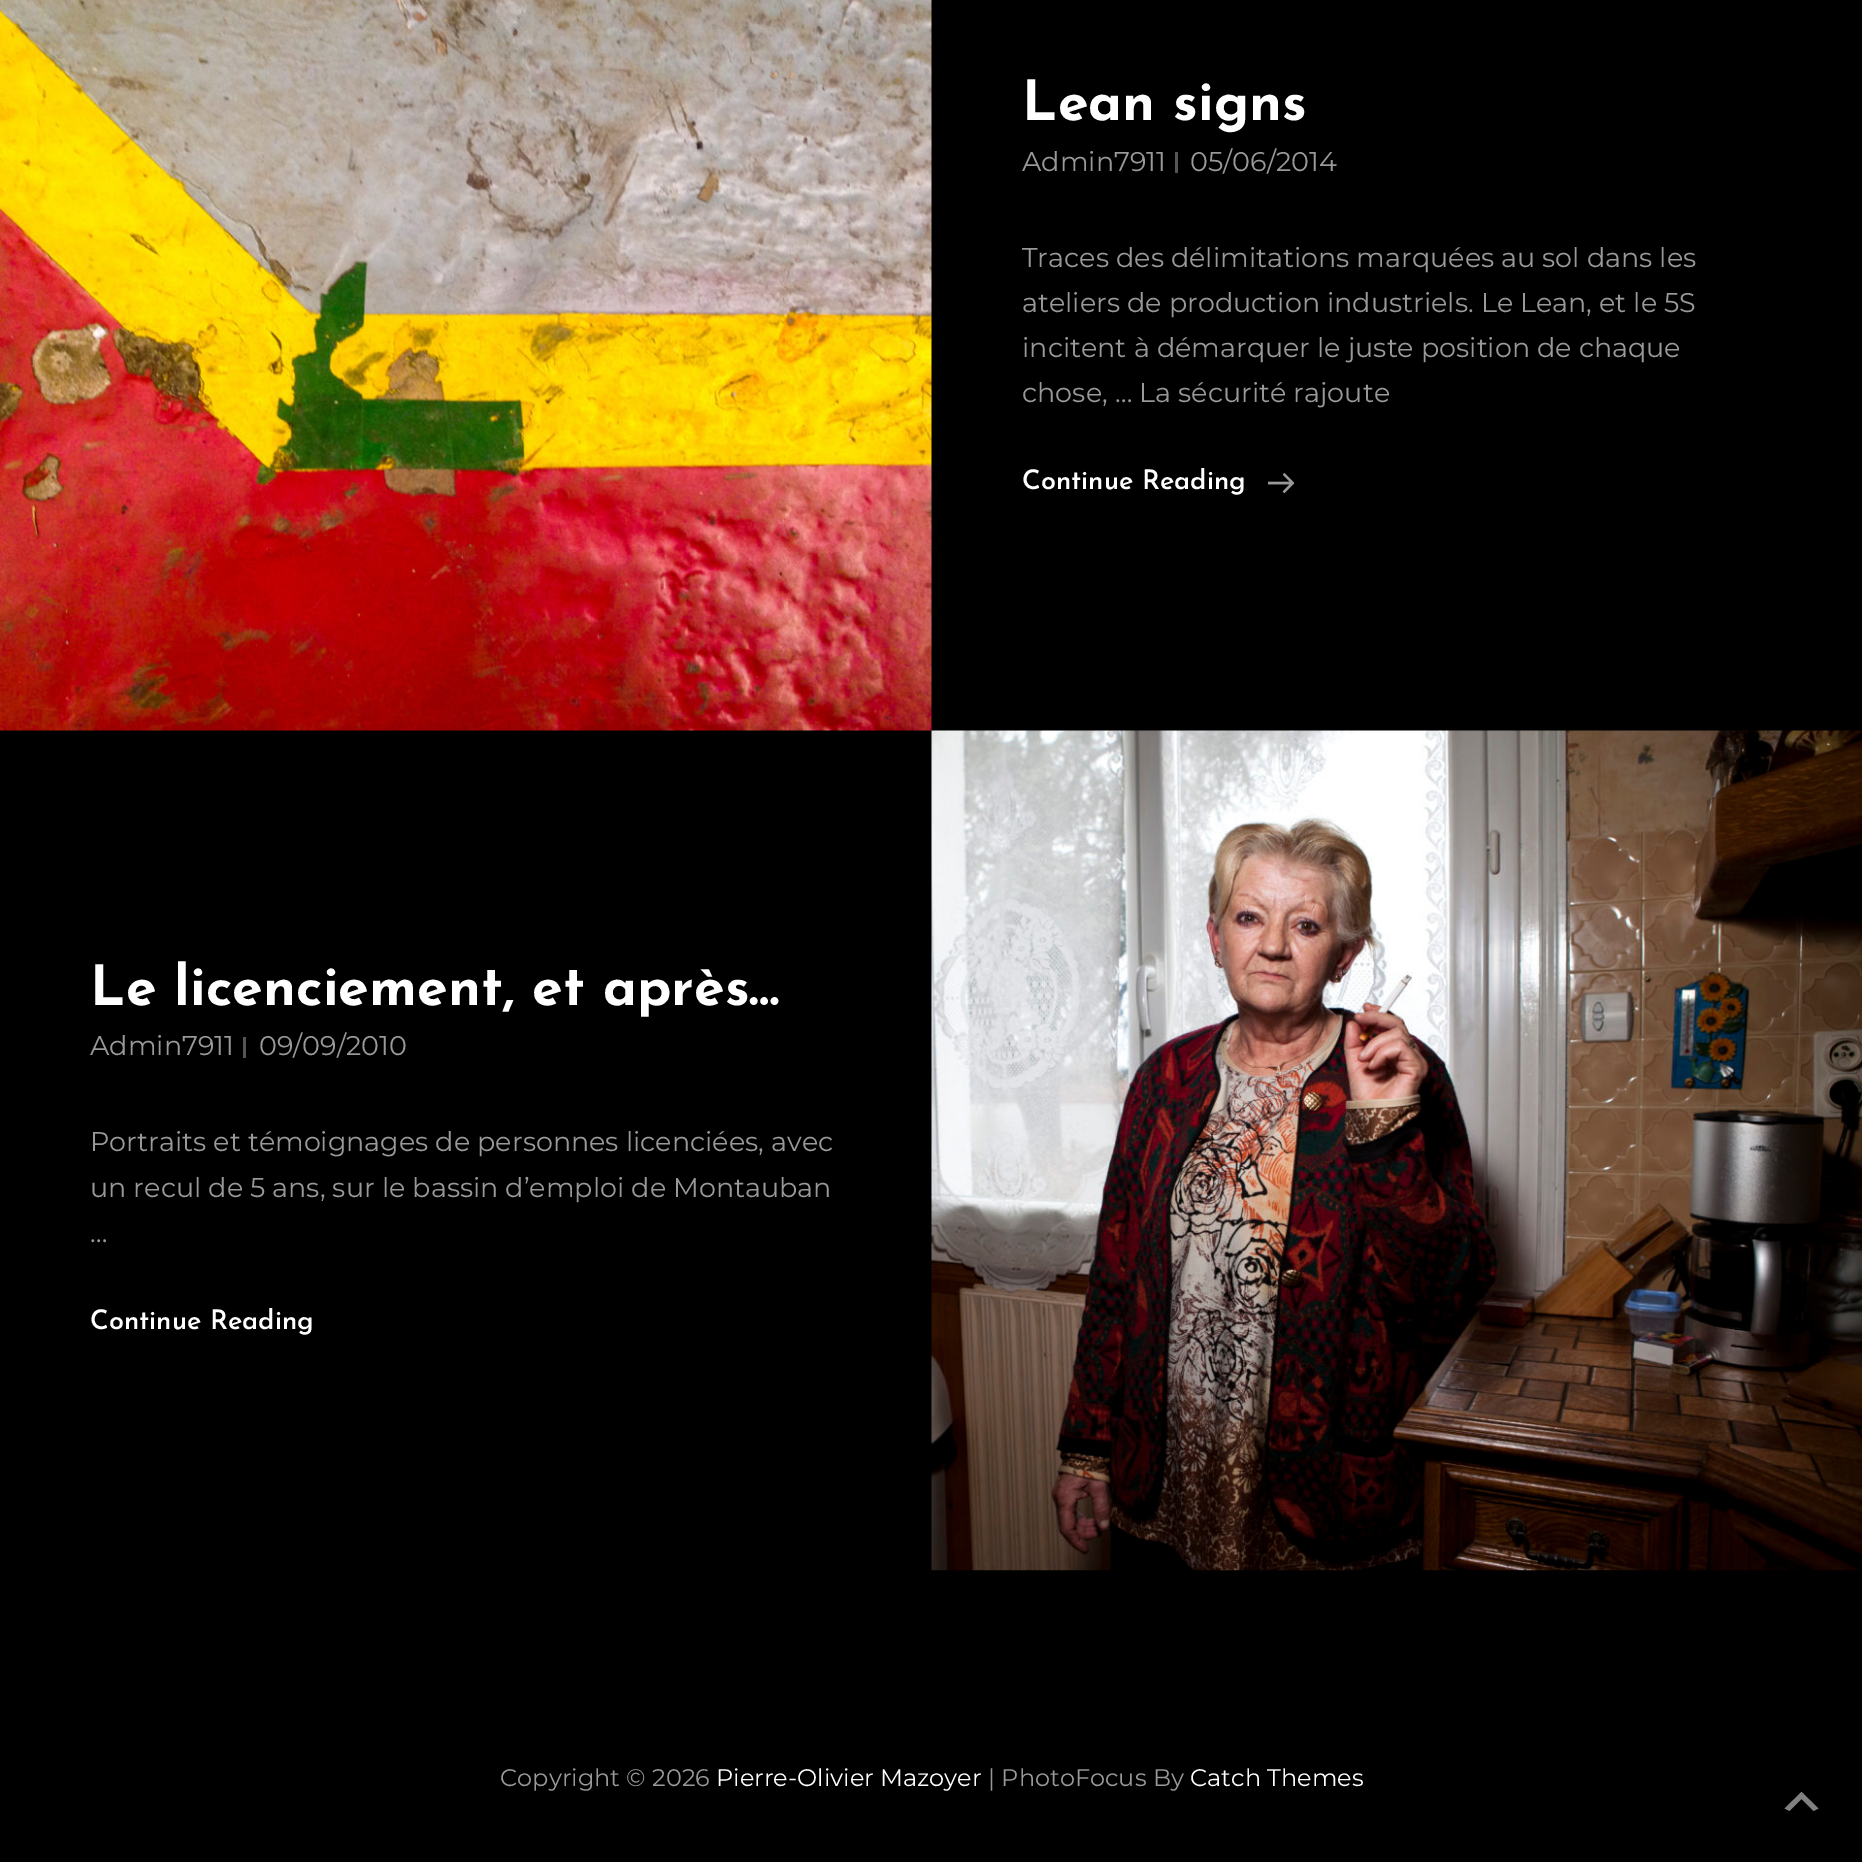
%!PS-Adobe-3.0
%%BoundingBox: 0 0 1862 1862
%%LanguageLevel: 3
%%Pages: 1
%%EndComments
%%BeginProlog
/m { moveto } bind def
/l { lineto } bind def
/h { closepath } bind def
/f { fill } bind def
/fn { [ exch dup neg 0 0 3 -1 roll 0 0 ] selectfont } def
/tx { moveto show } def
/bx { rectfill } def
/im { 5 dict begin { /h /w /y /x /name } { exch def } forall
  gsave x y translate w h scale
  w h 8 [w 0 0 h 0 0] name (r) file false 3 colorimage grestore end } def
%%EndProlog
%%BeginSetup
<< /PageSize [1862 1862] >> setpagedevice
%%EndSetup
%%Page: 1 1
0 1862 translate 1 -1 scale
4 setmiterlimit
0 setgray
0 0 1862 1862 bx
(image0.raw) 0 0 932 731 im
/JosefinSans-Bold 55.5 fn
1 setgray
(Lean signs) 1022 120 tx
/Montserrat-Regular 27 fn
0.6 setgray
(Admin7911) 1022 171 tx
0.333 setgray
1175 152 3 21 bx
0.6 setgray
(05/06/2014) 1190 171 tx
(Traces des délimitations marquées au sol dans les) 1022 267 tx
(ateliers de production industriels. Le Lean, et le 5S) 1022 312 tx
(incitent à démarquer le juste position de chaque) 1022 357 tx
(chose, … La sécurité rajoute) 1022 402 tx
/JosefinSans-SemiBold 27 fn
1 setgray
(Continue Reading) 1022 489 tx
(image1.raw) 1268 473 27 21 im
/JosefinSans-Bold 55.5 fn
(Le licenciement, et après…) 90 1005 tx
/Montserrat-Regular 27 fn
0.6 setgray
(Admin7911) 90 1055 tx
0.333 setgray
243 1037 3 21 bx
0.6 setgray
(09/09/2010) 259 1055 tx
(Portraits et témoignages de personnes licenciées, avec) 90 1151 tx
(un recul de 5 ans, sur le bassin d’emploi de Montauban) 90 1197 tx
(…) 90 1242 tx
/JosefinSans-SemiBold 27 fn
1 setgray
(Continue Reading) 90 1329 tx
(image2.raw) 931 730 931 841 im
/Montserrat-Regular 24 fn
0.6 setgray
(Copyright © 2026) 500 1786 tx
1 setgray
(Pierre-Olivier Mazoyer) 716 1786 tx
0.6 setgray
(| PhotoFocus By) 988 1786 tx
1 setgray
(Catch Themes) 1190 1786 tx
0.502 setgray
1813.5 1811 m 1801.5 1799 l 1789.5 1811 l 1784.5 1808.5 l 1801.5 1792 l 1818.5 1808.5 l h f
showpage
%%EOF
